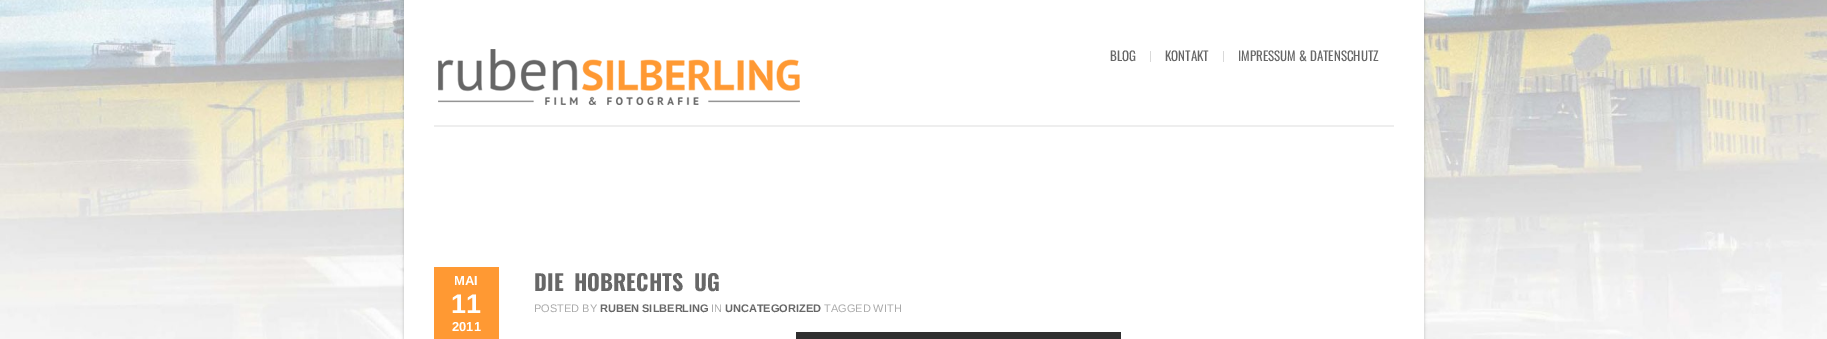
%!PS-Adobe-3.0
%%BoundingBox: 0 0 1827 339
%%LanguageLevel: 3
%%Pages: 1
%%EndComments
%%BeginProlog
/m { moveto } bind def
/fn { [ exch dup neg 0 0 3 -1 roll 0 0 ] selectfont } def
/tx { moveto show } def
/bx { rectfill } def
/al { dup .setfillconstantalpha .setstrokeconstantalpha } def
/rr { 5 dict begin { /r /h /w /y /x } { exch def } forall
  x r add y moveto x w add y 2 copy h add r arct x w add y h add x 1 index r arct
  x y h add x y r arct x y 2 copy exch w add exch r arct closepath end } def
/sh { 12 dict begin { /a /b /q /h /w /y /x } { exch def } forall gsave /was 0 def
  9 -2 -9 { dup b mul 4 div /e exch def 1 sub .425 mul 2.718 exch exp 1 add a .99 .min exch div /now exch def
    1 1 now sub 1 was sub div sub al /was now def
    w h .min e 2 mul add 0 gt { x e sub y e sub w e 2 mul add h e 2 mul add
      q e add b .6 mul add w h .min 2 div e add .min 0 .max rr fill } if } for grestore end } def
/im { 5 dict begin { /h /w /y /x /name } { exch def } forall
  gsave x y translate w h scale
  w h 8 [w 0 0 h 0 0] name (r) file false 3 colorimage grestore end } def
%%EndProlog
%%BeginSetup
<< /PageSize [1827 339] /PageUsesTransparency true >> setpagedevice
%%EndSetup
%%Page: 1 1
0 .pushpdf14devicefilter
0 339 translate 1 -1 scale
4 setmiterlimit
1 setgray
0 0 1827 339 bx
(image0.raw) 0 0 1827 339 im
0 setgray
404 0 1020 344 0 1.5 0.2 sh
1 setgray
404 0 1020 339 bx
0.933 setgray
434 125 960 2 bx
(image1.raw) 438 49 362 56 im
0.851 setgray
1150 51 1 11 bx
/Oswald-Regular 13 fn
0.404 setgray
(BLOG) 1110 61 tx
0.851 setgray
1223 51 1 11 bx
0.404 setgray
(KONTAKT) 1165 61 tx
(IMPRESSUM & DATENSCHUTZ) 1238 61 tx
1 0.6 0.2 setrgbcolor
434 267 65 72 bx
/LiberationSans-Bold 13 fn
1 setgray
(MAI) 454 285 tx
/LiberationSans-Bold 27 fn
(11) 451 313 tx
/LiberationSans-Bold 13 fn
(2011) 452 331 tx
/Oswald-Bold 22 fn
0.404 setgray
534 291 m 5 0 32 (DIE HOBRECHTS UG) widthshow
/LiberationSans-Regular 11 fn
0.667 setgray
(POSTED BY) 534 312 tx
/LiberationSans-Bold 11 fn
0.404 setgray
(RUBEN SILBERLING) 600 312 tx
/LiberationSans-Regular 11 fn
0.667 setgray
(IN) 711 312 tx
/LiberationSans-Bold 11 fn
0.404 setgray
(UNCATEGORIZED) 725 312 tx
/LiberationSans-Regular 11 fn
0.667 setgray
(TAGGED WITH) 824 312 tx
0.184 setgray
796 332 325 7 bx
.poppdf14devicefilter showpage
%%EOF
